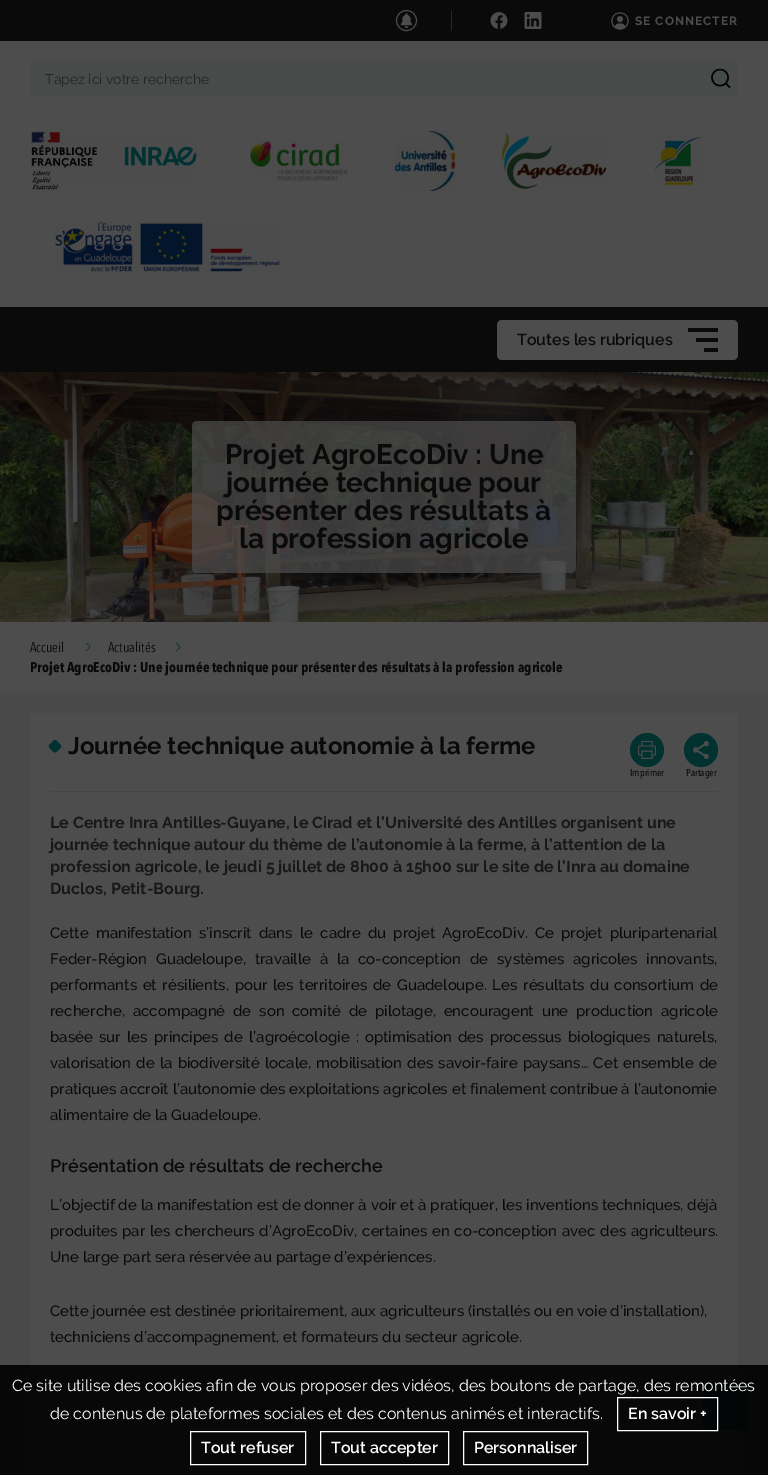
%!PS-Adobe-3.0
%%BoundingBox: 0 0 768 1475
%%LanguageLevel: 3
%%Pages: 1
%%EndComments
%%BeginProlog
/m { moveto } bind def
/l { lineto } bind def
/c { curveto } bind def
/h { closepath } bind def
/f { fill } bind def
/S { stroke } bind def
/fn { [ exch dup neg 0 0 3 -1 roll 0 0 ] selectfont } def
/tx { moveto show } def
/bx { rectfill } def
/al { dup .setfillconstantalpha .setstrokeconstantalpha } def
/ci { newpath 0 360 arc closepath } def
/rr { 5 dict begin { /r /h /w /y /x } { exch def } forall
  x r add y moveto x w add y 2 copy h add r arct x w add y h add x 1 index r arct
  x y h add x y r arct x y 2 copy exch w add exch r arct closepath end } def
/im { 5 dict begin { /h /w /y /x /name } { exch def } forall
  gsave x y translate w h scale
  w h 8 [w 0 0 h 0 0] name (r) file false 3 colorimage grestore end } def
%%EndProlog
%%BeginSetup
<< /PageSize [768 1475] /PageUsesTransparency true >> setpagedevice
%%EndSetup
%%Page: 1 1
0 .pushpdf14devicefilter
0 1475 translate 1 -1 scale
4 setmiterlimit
0.302 setgray
0 0 768 1475 bx
0.039 setgray
0 0 768 41 bx
0.302 setgray
406.5 20.5 10 ci S
(image0.raw) 400 13 13 15 im
0 0.22 0.2 setrgbcolor
451 11 1 20 bx
(image1.raw) 490 12 18 17 im
(image2.raw) 524 12 18 17 im
(image3.raw) 611 12 18 18 im
/Raleway-Bold 12 fn
0.302 setgray
635 25 m 1 0 (SE CONNECTER) ashow
0.286 0.294 0.294 setrgbcolor
30 61 708 36 2 rr f
/Raleway-Regular 14 fn
0.137 0.141 0.141 setrgbcolor
(Tapez ici votre recherche) 45 84 tx
(image4.raw) 711 68 20 20 im
(image5.raw) 31 131 166 59 im
(image6.raw) 250 139 98 43 im
(image7.raw) 395 131 60 60 im
(image8.raw) 501 132 106 57 im
(image9.raw) 654 136 49 50 im
(image10.raw) 55 221 225 51 im
0.039 setgray
0 307 768 65 bx
0.302 setgray
497 320 241 40 5 rr f
/Raleway-SemiBold 16 fn
0.039 setgray
(Toutes les rubriques) 517 345 tx
688 328 30 4 bx
696 338 22 4 bx
704 348 14 4 bx
(image11.raw) 0 372 768 250 im
0.7 al
0.302 setgray
192 421 384 152 5 rr f
/Raleway-Bold 28 fn
1 al
0.039 setgray
(Projet AgroEcoDiv : Une) 225 464 tx
(journée technique pour) 226 492 tx
(présenter des résultats à) 216 520 tx
(la profession agricole) 239 548 tx
/AvenirNext-Regular 14 fn
(Accueil) 30 652 tx
(image12.raw) 86 642 5 10 im
(Actualités) 108 652 tx
(image12.raw) 176 642 5 10 im
/AvenirNext-Bold 14 fn
(Projet AgroEcoDiv : Une journée technique pour présenter des résultats à la profession agricole) 30 672 tx
0.286 0.286 0.29 setrgbcolor
0 693 768 672 bx
0.027 setgray
0 1365 768 110 bx
0.008 0.024 0.024 setrgbcolor
738 1385 10 45 bx
0.302 setgray
30 713 708 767 5 rr f
0.031 setgray
30 1365 708 110 bx
0.008 0.024 0.024 setrgbcolor
703 1385 35 45 bx
0.275 setgray
50 791 668 1 bx
0 0.192 0.196 setrgbcolor
56.5 740.5 m 61 745.5 l 62 747.5 59.5 748.5 58.5 750 c 57.5 751 55.5 753.5 53.5 752 c 49 747 l 48 745 50.5 744 51.5 742.5 c 52.5 741.5 54.5 739 56.5 740.5 c h f
/Raleway-Bold 24 fn
0.039 setgray
(Journée technique autonomie à la ferme) 68 754 tx
0.004 0.196 0.188 setrgbcolor
647 750 17 ci f
(image13.raw) 638 741 18 18 im
/AvenirNext-Medium 10 fn
0.039 setgray
(Imprimer) 630 776 tx
0.004 0.196 0.188 setrgbcolor
701 750 17 ci f
(image14.raw) 693 741 16 18 im
0.039 setgray
(Partager) 686 776 tx
/Raleway-Bold 16 fn
0.094 setgray
(Le Centre Inra Antilles-Guyane, le Cirad et l’Université des Antilles organisent une) 50 828 tx
(journée technique autour du thème de l’autonomie à la ferme, à l’attention de la) 50 850 tx
(profession agricole, le jeudi 5 juillet de 8h00 à 15h00 sur le site de l’Inra au domaine) 50 872 tx
(Duclos, Petit-Bourg.) 50 894 tx
/Raleway-Medium 15 fn
0.039 setgray
50 938 m 3.4 0 32 (Cette manifestation s’inscrit dans le cadre du projet AgroEcoDiv. Ce projet pluripartenarial) widthshow
50 964 m 5 0 32 (Feder-Région Guadeloupe, travaille à la co-conception de systèmes agricoles innovants,) widthshow
50 990 m 1.9 0 32 (performants et résilients, pour les territoires de Guadeloupe. Les résultats du consortium de) widthshow
50 1016 m 4 0 32 (recherche, accompagné de son comité de pilotage, encouragent une production agricole) widthshow
50 1042 m 2.4 0 32 (basée sur les principes de l’agroécologie : optimisation des processus biologiques naturels,) widthshow
50 1068 m 1.5 0 32 (valorisation de la biodiversité locale, mobilisation des savoir-faire paysans… Cet ensemble de) widthshow
50 1094 m 0.25 0 32 (pratiques accroît l’autonomie des exploitations agricoles et finalement contribue à l’autonomie) widthshow
(alimentaire de la Guadeloupe.) 50 1120 tx
/Raleway-SemiBold 18 fn
(Présentation de résultats de recherche) 50 1172 tx
/Raleway-Medium 15 fn
(L’objectif de la manifestation est de donner à voir et à pratiquer, les inventions techniques, déjà) 50 1210 tx
50 1236 m 1 0 32 (produites par les chercheurs d’AgroEcoDiv, certaines en co-conception avec des agriculteurs.) widthshow
(Une large part sera réservée au partage d’expériences.) 50 1262 tx
(Cette journée est destinée prioritairement, aux agriculteurs \(installés ou en voie d’installation\),) 50 1316 tx
(techniciens d’accompagnement, et formateurs du secteur agricole.) 50 1342 tx
/Raleway-Regular 16 fn
1 setgray
(Ce site utilise des cookies afin de vous proposer des vidéos, des boutons de partage, des remontées) 12 1391 tx
(de contenus de plateformes sociales et des contenus animés et interactifs.) 50 1419 tx
617.5 1397.5 100 33 rectstroke
/Raleway-SemiBold 16 fn
(En savoir +) 628 1419 tx
190.5 1431.5 115 33 rectstroke
(Tout refuser) 201 1453 tx
320.5 1431.5 128 33 rectstroke
(Tout accepter) 331 1453 tx
463.5 1431.5 124 33 rectstroke
(Personnaliser) 474 1453 tx
(image15.raw) 721 1405 10 6 im
.poppdf14devicefilter showpage
%%EOF
